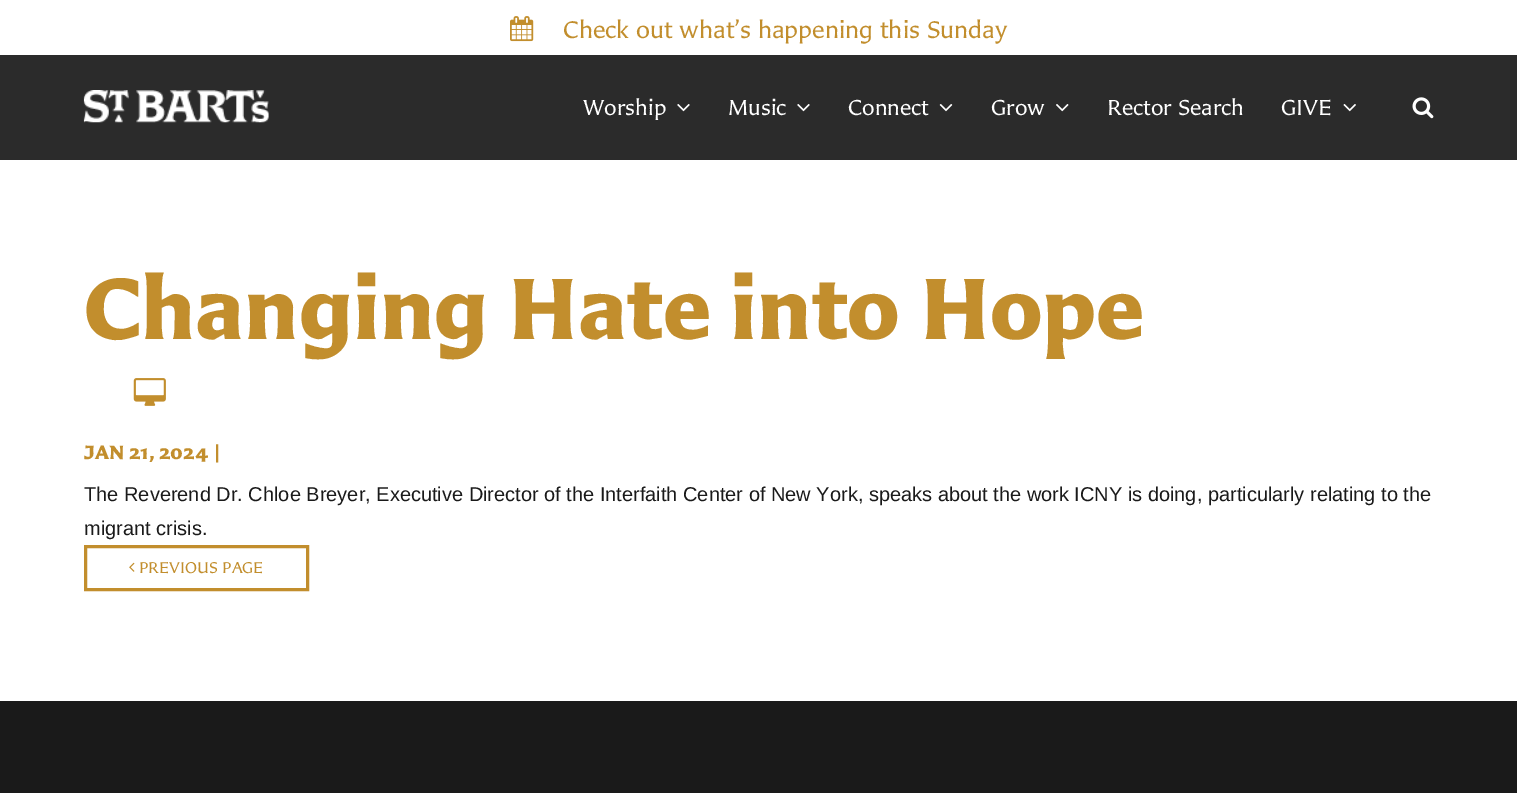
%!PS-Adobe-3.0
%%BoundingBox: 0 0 1517 793
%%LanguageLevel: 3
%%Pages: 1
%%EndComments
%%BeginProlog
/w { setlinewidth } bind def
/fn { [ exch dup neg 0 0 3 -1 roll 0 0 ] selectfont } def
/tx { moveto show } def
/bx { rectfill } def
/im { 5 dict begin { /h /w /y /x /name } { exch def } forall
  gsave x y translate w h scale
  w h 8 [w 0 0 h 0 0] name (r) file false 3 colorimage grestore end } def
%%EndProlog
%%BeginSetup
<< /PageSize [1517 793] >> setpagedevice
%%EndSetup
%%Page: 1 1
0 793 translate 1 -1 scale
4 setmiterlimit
1 setgray
0 0 1517 793 bx
(image0.raw) 510 16 24 26 im
/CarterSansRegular-Regular 25 fn
0.761 0.557 0.176 setrgbcolor
(Check out what’s happening this Sunday) 563 38 tx
0.169 setgray
0 55 1517 105 bx
(image1.raw) 83 90 186 33 im
/CarterSansRegular-Regular 22.5 fn
1 setgray
(Worship) 583 115 tx
(image2.raw) 677 104 13 8 im
(Music) 728 115 tx
(image2.raw) 797 104 13 8 im
(Connect) 848 115 tx
(image3.raw) 939 104 14 8 im
(Grow) 991 115 tx
(image4.raw) 1056 104 13 8 im
(Rector Search) 1107 115 tx
(GIVE) 1281 115 tx
(image5.raw) 1343 104 13 8 im
(image6.raw) 1412 97 22 22 im
/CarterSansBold-Bold 90 fn
0.761 0.557 0.176 setrgbcolor
(Changing Hate into Hope) 84 339 tx
(image7.raw) 133 378 33 28 im
/CarterSansBold-Bold 20 fn
(JAN 21, 2024 |) 84 459 tx
/LiberationSans-Regular 20 fn
0.102 setgray
(The Reverend Dr. Chloe Breyer, Executive Director of the Interfaith Center of New York, speaks about the work ICNY is doing, particularly relating to the) 84 501 tx
(migrant crisis.) 84 535 tx
0.761 0.557 0.176 setrgbcolor
3 w
85.5 546.5 222 43 rectstroke
(image8.raw) 129 562 6 10 im
/CarterSansRegular-Regular 16.25 fn
(PREVIOUS PAGE) 139 573 tx
0.102 setgray
0 701 1517 92 bx
showpage
%%EOF
